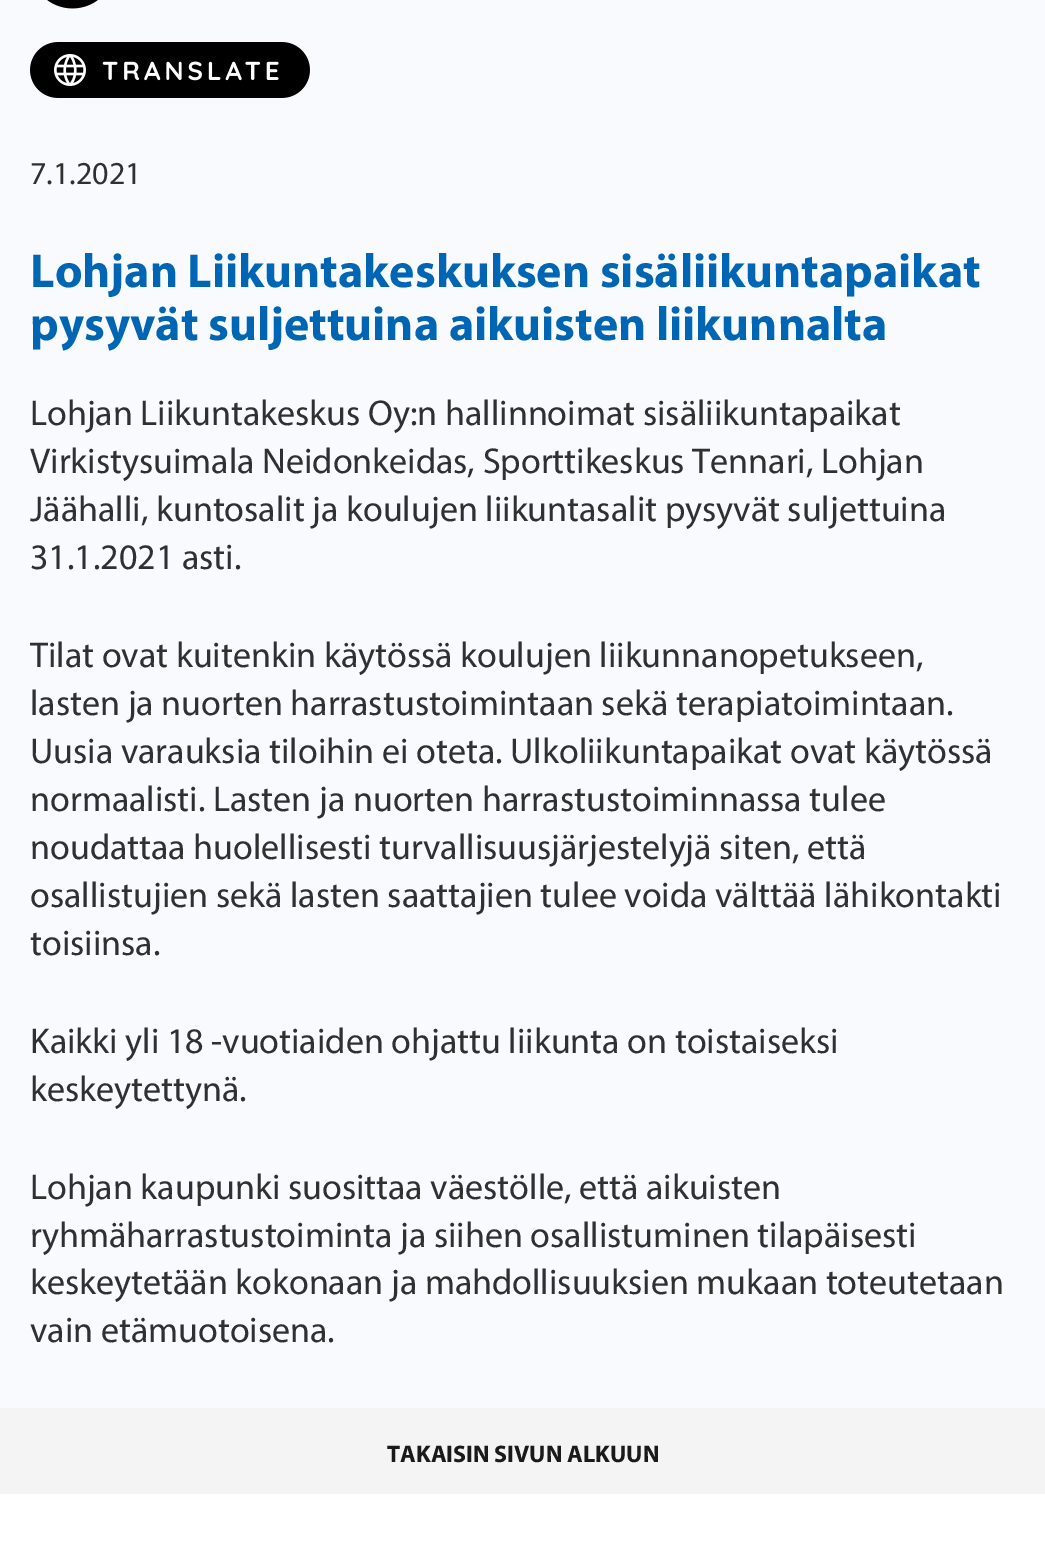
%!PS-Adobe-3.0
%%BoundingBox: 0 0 1045 1558
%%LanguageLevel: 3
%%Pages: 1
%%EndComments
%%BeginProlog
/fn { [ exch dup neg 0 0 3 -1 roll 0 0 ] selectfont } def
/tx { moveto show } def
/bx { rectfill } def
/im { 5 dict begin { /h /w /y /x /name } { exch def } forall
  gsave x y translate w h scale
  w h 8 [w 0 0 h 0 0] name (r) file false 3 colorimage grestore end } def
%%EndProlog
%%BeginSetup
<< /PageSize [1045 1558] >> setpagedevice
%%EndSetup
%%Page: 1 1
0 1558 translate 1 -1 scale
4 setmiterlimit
0.973 0.98 0.996 setrgbcolor
0 0 1045 1558 bx
(image0.raw) 47 0 51 9 im
(image1.raw) 30 42 280 56 im
/Myriad-Regular 32 fn
0.188 setgray
(7.1.2021) 30 184 tx
/Myriad-Bold 48 fn
0 0.4 0.702 setrgbcolor
(Lohjan Liikuntakeskuksen sisäliikuntapaikat) 30 287 tx
(pysyvät suljettuina aikuisten liikunnalta) 30 340 tx
/Myriad-Regular 36 fn
0.188 setgray
(Lohjan Liikuntakeskus Oy:n hallinnoimat sisäliikuntapaikat) 30 425 tx
(Virkistysuimala Neidonkeidas, Sporttikeskus Tennari, Lohjan) 30 473 tx
(Jäähalli, kuntosalit ja koulujen liikuntasalit pysyvät suljettuina) 30 521 tx
(31.1.2021 asti.) 30 569 tx
(Tilat ovat kuitenkin käytössä koulujen liikunnanopetukseen,) 30 667 tx
(lasten ja nuorten harrastustoimintaan sekä terapiatoimintaan.) 30 715 tx
(Uusia varauksia tiloihin ei oteta. Ulkoliikuntapaikat ovat käytössä) 30 763 tx
(normaalisti. Lasten ja nuorten harrastustoiminnassa tulee) 30 811 tx
(noudattaa huolellisesti turvallisuusjärjestelyjä siten, että) 30 859 tx
(osallistujien sekä lasten saattajien tulee voida välttää lähikontakti) 30 907 tx
(toisiinsa.) 30 955 tx
(Kaikki yli 18 -vuotiaiden ohjattu liikunta on toistaiseksi) 30 1053 tx
(keskeytettynä.) 30 1101 tx
(Lohjan kaupunki suosittaa väestölle, että aikuisten) 30 1199 tx
(ryhmäharrastustoiminta ja siihen osallistuminen tilapäisesti) 30 1247 tx
(keskeytetään kokonaan ja mahdollisuuksien mukaan toteutetaan) 30 1294 tx
(vain etämuotoisena.) 30 1342 tx
0.957 setgray
0 1408 1045 86 bx
/Myriad-Bold 24 fn
0.102 setgray
(TAKAISIN SIVUN ALKUUN) 387 1462 tx
1 setgray
0 1494 1045 64 bx
showpage
%%EOF
